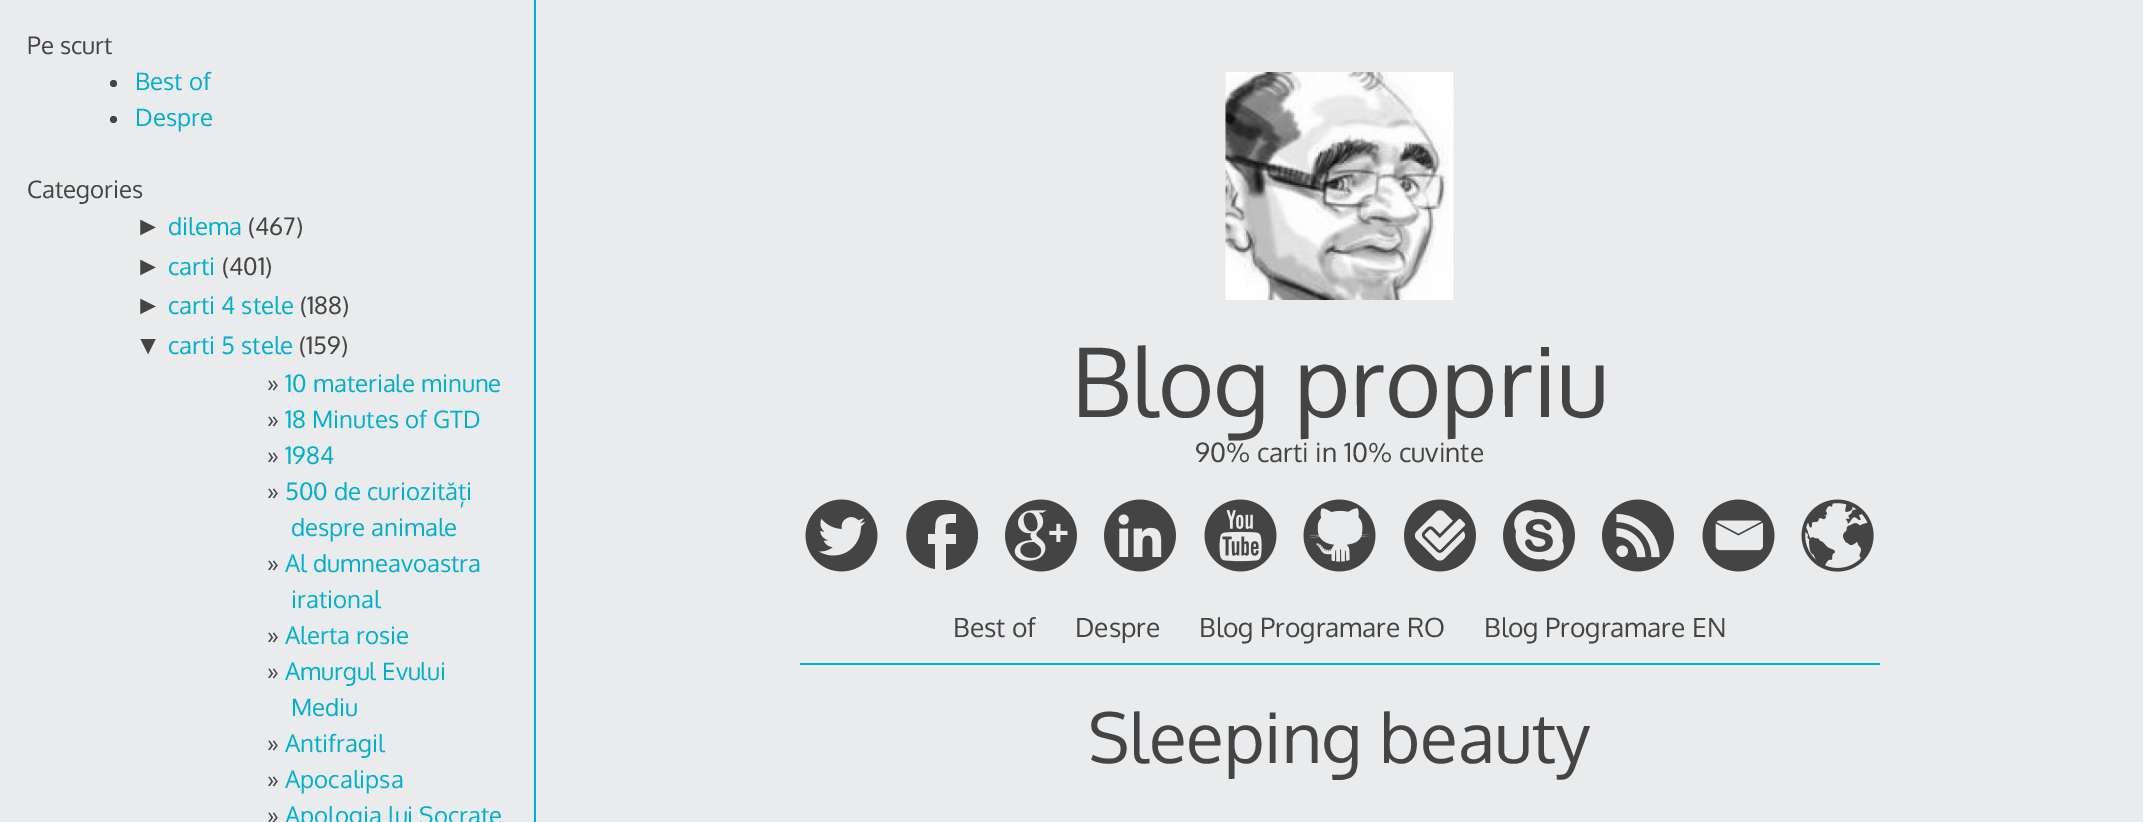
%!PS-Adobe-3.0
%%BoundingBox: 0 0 2143 822
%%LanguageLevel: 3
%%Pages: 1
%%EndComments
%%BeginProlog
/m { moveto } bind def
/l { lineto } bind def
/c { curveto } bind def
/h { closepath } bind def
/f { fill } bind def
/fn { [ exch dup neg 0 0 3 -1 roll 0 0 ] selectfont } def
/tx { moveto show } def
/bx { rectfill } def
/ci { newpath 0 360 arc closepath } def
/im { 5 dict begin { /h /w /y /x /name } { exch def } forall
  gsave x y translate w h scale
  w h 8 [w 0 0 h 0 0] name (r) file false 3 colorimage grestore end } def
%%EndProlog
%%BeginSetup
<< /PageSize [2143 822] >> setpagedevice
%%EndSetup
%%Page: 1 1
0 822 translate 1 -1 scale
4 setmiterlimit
0.914 0.922 0.929 setrgbcolor
0 0 2143 822 bx
0 0.69 0.8 setrgbcolor
534 0 2 822 bx
/Oxygen-Regular 24 fn
0.267 setgray
(Pe scurt) 27 54 tx
113.5 83.5 3.5 ci f
0 0.69 0.8 setrgbcolor
(Best of) 135 90 tx
0.267 setgray
113.5 119.5 3.5 ci f
0 0.69 0.8 setrgbcolor
(Despre) 135 126 tx
0.267 setgray
(Categories) 27 198 tx
/LiberationSans-Regular 26.4 fn
(►) 135 235 tx
/Oxygen-Regular 24 fn
0 0.69 0.8 setrgbcolor
(dilema) 168 235 tx
0.267 setgray
(\(467\)) 248 235 tx
/LiberationSans-Regular 26.4 fn
(►) 135 275 tx
/Oxygen-Regular 24 fn
0 0.69 0.8 setrgbcolor
(carti) 168 275 tx
0.267 setgray
(\(401\)) 222 275 tx
/LiberationSans-Regular 26.4 fn
(►) 135 314 tx
/Oxygen-Regular 24 fn
0 0.69 0.8 setrgbcolor
(carti 4 stele) 168 314 tx
0.267 setgray
(\(188\)) 300 314 tx
/LiberationSans-Regular 26.4 fn
(▼) 135 354 tx
/Oxygen-Regular 24 fn
0 0.69 0.8 setrgbcolor
(carti 5 stele) 168 354 tx
0.267 setgray
(\(159\)) 299 354 tx
(») 267 392 tx
0 0.69 0.8 setrgbcolor
(10 materiale minune) 285 392 tx
0.267 setgray
(») 267 428 tx
0 0.69 0.8 setrgbcolor
(18 Minutes of GTD) 285 428 tx
0.267 setgray
(») 267 464 tx
0 0.69 0.8 setrgbcolor
(1984) 285 464 tx
0.267 setgray
(») 267 500 tx
0 0.69 0.8 setrgbcolor
(500 de curiozități) 285 500 tx
(despre animale) 291 536 tx
0.267 setgray
(») 267 572 tx
0 0.69 0.8 setrgbcolor
(Al dumneavoastra) 285 572 tx
(irational) 291 608 tx
0.267 setgray
(») 267 644 tx
0 0.69 0.8 setrgbcolor
(Alerta rosie) 285 644 tx
0.267 setgray
(») 267 680 tx
0 0.69 0.8 setrgbcolor
(Amurgul Evului) 285 680 tx
(Mediu) 291 716 tx
0.267 setgray
(») 267 752 tx
0 0.69 0.8 setrgbcolor
(Antifragil) 285 752 tx
0.267 setgray
(») 267 788 tx
0 0.69 0.8 setrgbcolor
(Apocalipsa) 285 788 tx
0.267 setgray
(») 267 824 tx
0 0.69 0.8 setrgbcolor
(Apologia lui Socrate) 285 824 tx
800 663 1080 2 bx
(image0.raw) 1225 72 229 228 im
/Oxygen-Regular 96 fn
0.267 setgray
(Blog propriu) 1071 417 tx
/Oxygen-Regular 26.4 fn
(90% carti in 10% cuvinte) 1195 462 tx
(image1.raw) 805 499 73 73 im
942 500 m 962 500 978 515 978 535 c 978 553 964 568 946 570 c 946 544 l 956 544 l 956 534 l 946 534 l 946 523 944 523 956 523 c 956 514 l 949 514 l 934 514 935 523 935 534 c 928 534 l 928 544 l 935 544 l 935 569 l 893 561 899 500 942 500 c h eofill
(image2.raw) 1005 499 72 73 im
(image3.raw) 1104 499 72 73 im
(image4.raw) 1204 499 73 73 im
(image5.raw) 1303 499 73 73 im
(image6.raw) 1404 499 72 73 im
(image7.raw) 1503 499 72 73 im
(image8.raw) 1602 499 72 73 im
(image9.raw) 1702 499 73 73 im
(image10.raw) 1801 499 73 73 im
(Best of) 953 637 tx
(Despre) 1075 637 tx
(Blog Programare RO) 1199 637 tx
(Blog Programare EN) 1484 637 tx
/Oxygen-Regular 69.25 fn
(Sleeping beauty) 1088 763 tx
showpage
%%EOF
